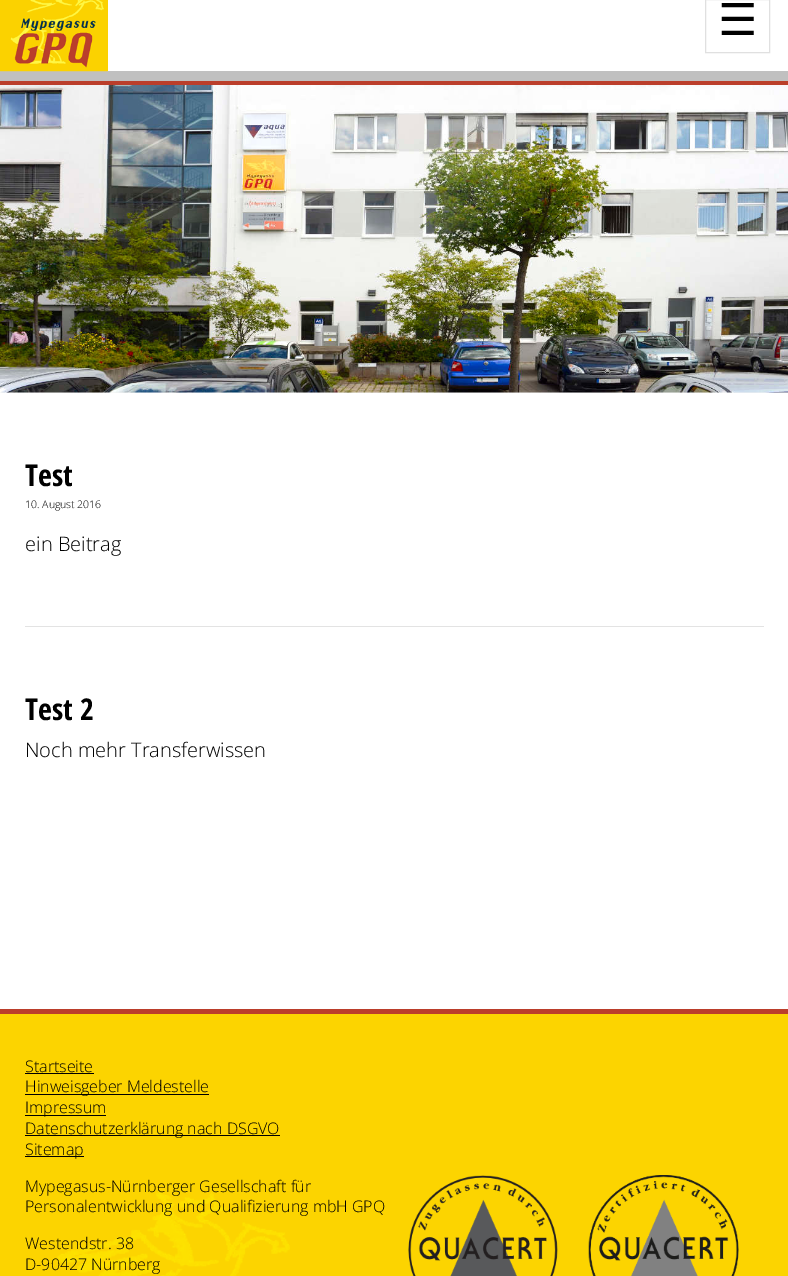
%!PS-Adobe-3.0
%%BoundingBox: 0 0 788 1276
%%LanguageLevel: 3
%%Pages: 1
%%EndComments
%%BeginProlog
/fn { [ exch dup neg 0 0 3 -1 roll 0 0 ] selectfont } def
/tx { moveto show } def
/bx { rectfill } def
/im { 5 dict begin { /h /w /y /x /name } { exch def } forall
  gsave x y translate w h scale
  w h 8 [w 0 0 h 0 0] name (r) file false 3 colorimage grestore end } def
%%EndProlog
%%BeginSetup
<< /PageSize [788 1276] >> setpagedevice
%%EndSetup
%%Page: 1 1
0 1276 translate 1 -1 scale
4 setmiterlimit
1 setgray
0 0 788 1276 bx
0.988 0.831 0 setrgbcolor
107 0 1 71 bx
0.753 setgray
0 71 788 10 bx
(image0.raw) 0 0 108 72 im
0.878 setgray
705.5 -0.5 64 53 rectstroke
/DejaVuSans-Regular 44 fn
0 setgray
(☰) 718 35 tx
0.733 0.243 0.169 setrgbcolor
0 81 788 4 bx
0.953 setgray
0 392 788 1 bx
(image1.raw) 0 85 788 308 im
0.89 setgray
25 626 739 1 bx
/OpenSansCondensed-Bold 30 fn
0 setgray
(Test) 25 486 tx
/OpenSans-Light 10.5 fn
(10. August 2016) 25 508 tx
/OpenSans-Light 20 fn
(ein Beitrag) 25 551 tx
/OpenSansCondensed-Bold 30 fn
(Test 2) 25 720 tx
/OpenSans-Light 20 fn
(Noch mehr Transferwissen) 25 757 tx
0.988 0.831 0 setrgbcolor
0 1014 788 262 bx
(image2.raw) 57 1192 233 84 im
0.733 0.243 0.169 setrgbcolor
0 1009 788 5 bx
/OpenSans-Light 16 fn
0 setgray
(Startseite) 25 1072 tx
25 1073 69 1 bx
25 1094 184 1 bx
(Hinweisgeber Meldestelle) 25 1092 tx
25 1115 81 1 bx
(Impressum) 25 1113 tx
25 1135 255 1 bx
(Datenschutzerklärung nach DSGVO) 25 1134 tx
25 1156 59 1 bx
(Sitemap) 25 1155 tx
(Mypegasus-Nürnberger Gesellschaft für) 25 1192 tx
(Personalentwicklung und Qualifizierung mbH GPQ) 25 1212 tx
(image3.raw) 408 1175 150 101 im
(image4.raw) 588 1175 151 101 im
(Westendstr. 38) 25 1249 tx
(D-90427 Nürnberg) 25 1270 tx
showpage
%%EOF
